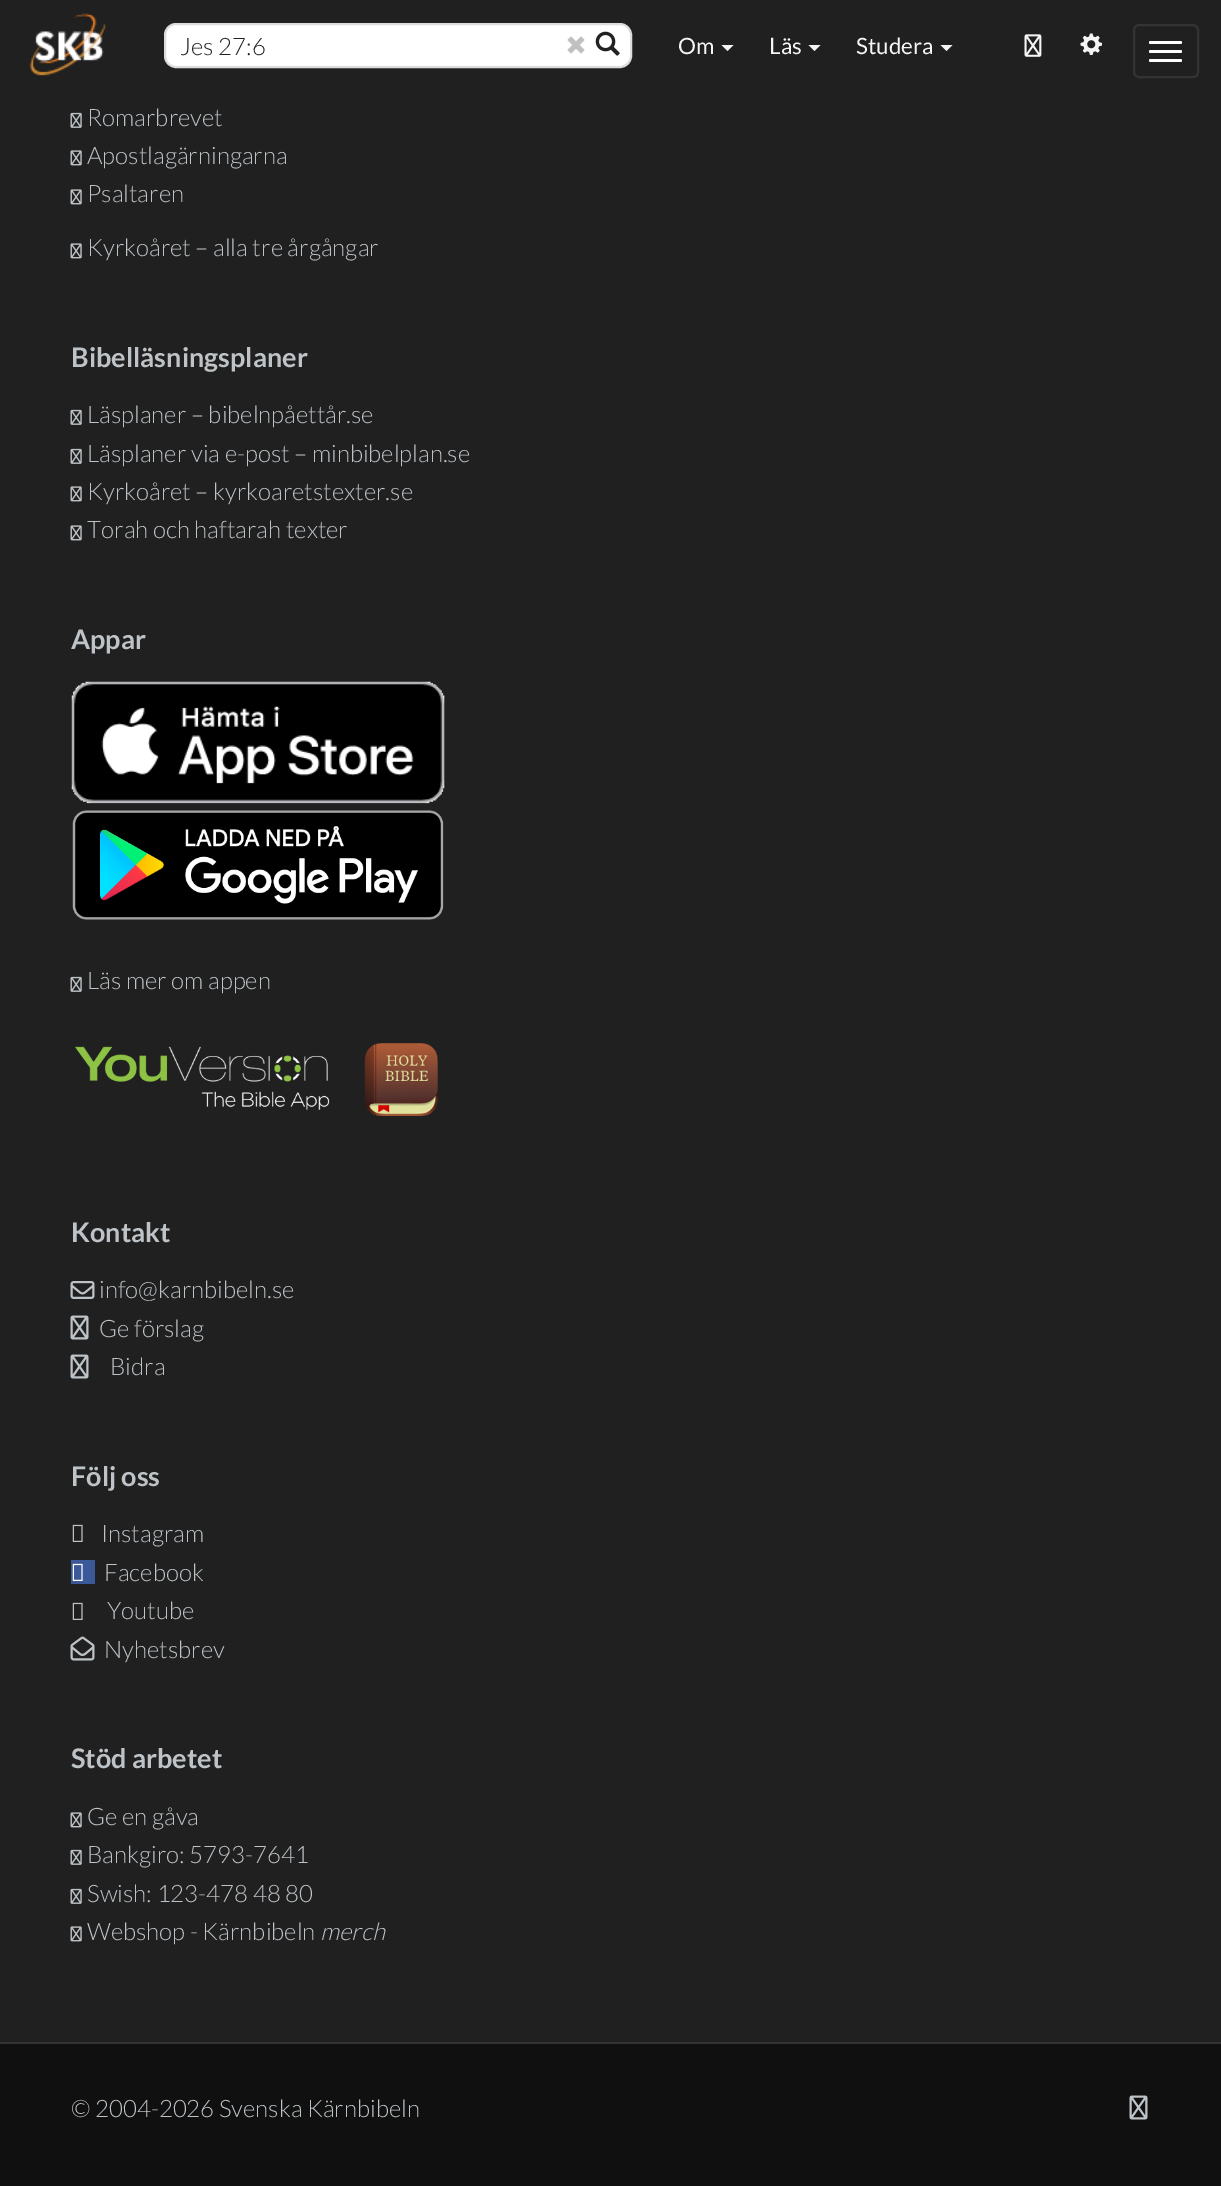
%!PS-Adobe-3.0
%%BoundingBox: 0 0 1221 2186
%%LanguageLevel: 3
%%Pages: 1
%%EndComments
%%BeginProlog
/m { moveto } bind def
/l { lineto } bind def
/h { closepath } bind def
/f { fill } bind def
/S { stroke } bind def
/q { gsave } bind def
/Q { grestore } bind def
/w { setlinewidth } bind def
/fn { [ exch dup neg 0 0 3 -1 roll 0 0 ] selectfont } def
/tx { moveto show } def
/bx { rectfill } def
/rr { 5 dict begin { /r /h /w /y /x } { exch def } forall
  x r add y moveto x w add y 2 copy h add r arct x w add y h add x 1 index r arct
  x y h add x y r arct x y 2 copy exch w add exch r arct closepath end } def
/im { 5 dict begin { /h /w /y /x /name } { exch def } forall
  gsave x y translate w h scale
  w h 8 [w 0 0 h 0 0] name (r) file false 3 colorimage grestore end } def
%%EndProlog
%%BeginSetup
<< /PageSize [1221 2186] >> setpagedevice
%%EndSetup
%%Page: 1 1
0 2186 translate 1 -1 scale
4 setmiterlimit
0.125 setgray
0 0 1221 2186 bx
(image0.raw) 29 13 78 63 im
1 setgray
165 24 466 43 11 rr q f Q
0.867 setgray
2 w
S
/Lato-Light 24 fn
0.133 setgray
(Jes 27:6) 180 55 tx
(image1.raw) 567 36 18 18 im
(image2.raw) 595 31 25 25 im
/Lato-Regular 22.5 fn
0.961 setgray
(Om) 678 54 tx
721.5 45 m 733.5 45 l 727.5 51 l h f
(Läs) 769 54 tx
808.5 45 m 820.5 45 l 814.5 51 l h f
(Studera) 856 54 tx
940.5 45 m 952.5 45 l 946.5 51 l h f
(image3.raw) 1024 34 18 23 im
(image4.raw) 1080 33 22 22 im
0.2 setgray
1134 25 64 52 5 rr S
1 setgray
1149 41 33 3 1.5 rr f
1149 50 33 3 1.5 rr f
1149 59 33 3 1.5 rr f
(image5.raw) 70 112 12 16 im
/Lato-Light 24 fn
0.741 0.765 0.78 setrgbcolor
(Romarbrevet) 87 126 tx
(image6.raw) 70 150 12 16 im
(Apostlagärningarna) 87 164 tx
(image6.raw) 70 189 12 16 im
(Psaltaren) 87 202 tx
(image6.raw) 70 243 12 16 im
(Kyrkoåret – alla tre årgångar) 87 256 tx
/Lato-Bold 27 fn
(Bibelläsningsplaner) 71 367 tx
(image5.raw) 70 409 12 16 im
/Lato-Light 24 fn
(Läsplaner – bibelnpåettår.se) 87 423 tx
(image5.raw) 70 448 12 16 im
(Läsplaner via e-post – minbibelplan.se) 87 462 tx
(image6.raw) 70 486 12 16 im
(Kyrkoåret – kyrkoaretstexter.se) 87 500 tx
(image6.raw) 70 525 12 16 im
(Torah och haftarah texter) 87 538 tx
/Lato-Bold 27 fn
(Appar) 71 649 tx
(image7.raw) 71 681 374 123 im
(image8.raw) 72 810 372 110 im
(image5.raw) 70 976 12 16 im
/Lato-Light 24 fn
(Läs mer om appen) 87 989 tx
(image9.raw) 75 1043 363 73 im
/Lato-Bold 27 fn
(Kontakt) 71 1242 tx
(image10.raw) 70 1281 25 18 im
/Lato-Light 24 fn
(info@karnbibeln.se) 99 1298 tx
(image11.raw) 70 1315 19 25 im
(Ge förslag) 99 1337 tx
(image11.raw) 70 1354 19 25 im
(Bidra) 110 1375 tx
/Lato-Bold 27 fn
(Följ oss) 71 1486 tx
(image12.raw) 72 1524 11 18 im
/Lato-Light 24 fn
(Instagram) 101 1542 tx
0.231 0.349 0.596 setrgbcolor
71 1560 24 24 bx
(image13.raw) 72 1563 11 18 im
0.741 0.765 0.78 setrgbcolor
(Facebook) 104 1581 tx
(image12.raw) 72 1602 11 18 im
(Youtube) 107 1619 tx
(image14.raw) 70 1636 25 25 im
(Nyhetsbrev) 104 1658 tx
/Lato-Bold 27 fn
(Stöd arbetet) 71 1768 tx
(image6.raw) 70 1812 12 16 im
/Lato-Light 24 fn
(Ge en gåva) 87 1825 tx
(image5.raw) 70 1849 12 16 im
(Bankgiro: 5793-7641) 87 1863 tx
(image5.raw) 70 1888 12 16 im
(Swish: 123-478 48 80) 87 1902 tx
(image6.raw) 70 1926 12 16 im
(Webshop - Kärnbibeln) 87 1940 tx
/Lato-LightItalic 24 fn
(merch) 320 1940 tx
0.063 setgray
0 2044 1221 142 bx
0.2 setgray
0 2042 1221 2 bx
/Lato-Light 24 fn
0.741 0.765 0.78 setrgbcolor
(© 2004-2026 Svenska Kärnbibeln) 71 2117 tx
(image15.raw) 1129 2095 19 25 im
showpage
%%EOF
